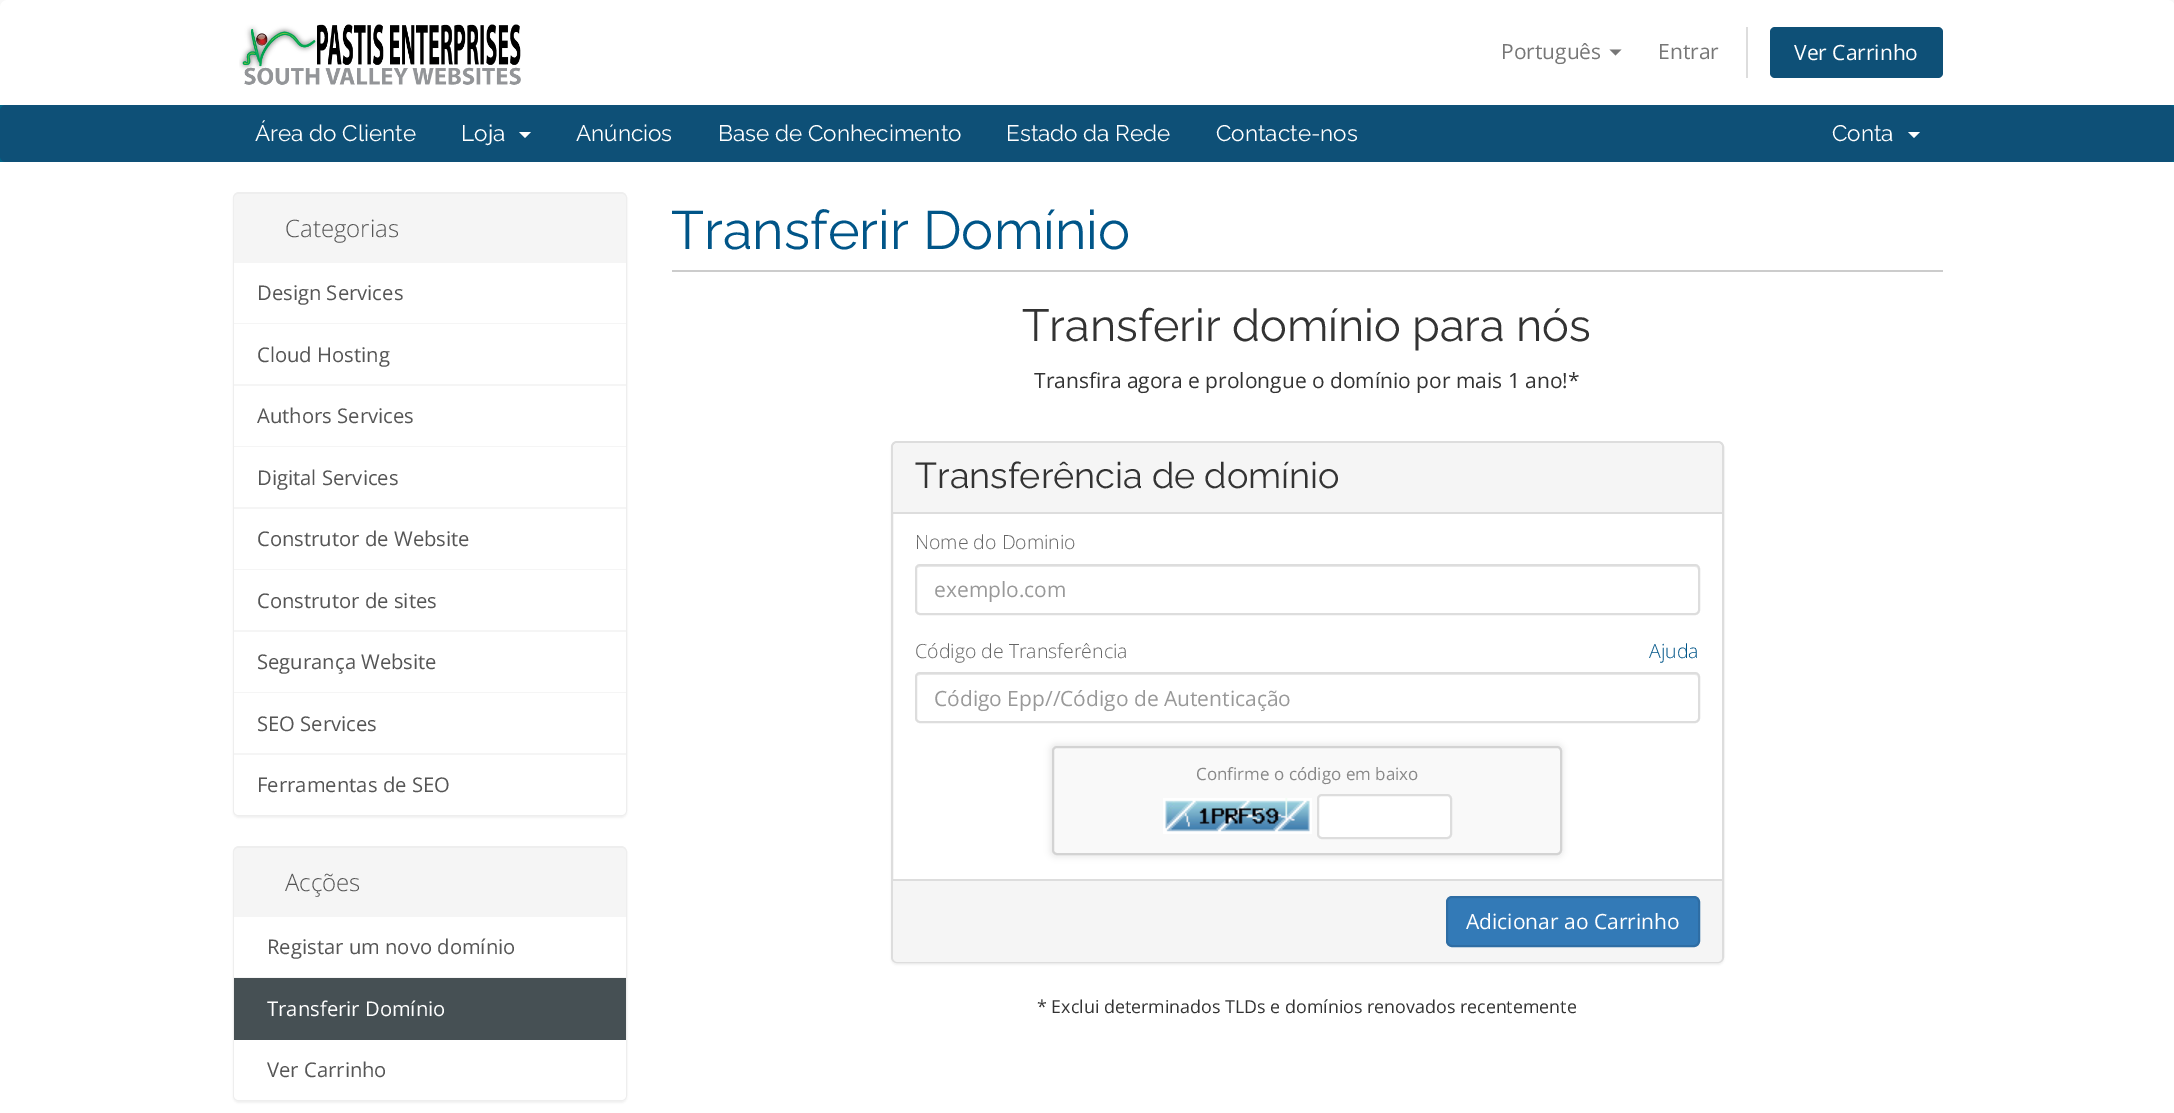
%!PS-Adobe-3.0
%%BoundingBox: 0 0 2174 1113
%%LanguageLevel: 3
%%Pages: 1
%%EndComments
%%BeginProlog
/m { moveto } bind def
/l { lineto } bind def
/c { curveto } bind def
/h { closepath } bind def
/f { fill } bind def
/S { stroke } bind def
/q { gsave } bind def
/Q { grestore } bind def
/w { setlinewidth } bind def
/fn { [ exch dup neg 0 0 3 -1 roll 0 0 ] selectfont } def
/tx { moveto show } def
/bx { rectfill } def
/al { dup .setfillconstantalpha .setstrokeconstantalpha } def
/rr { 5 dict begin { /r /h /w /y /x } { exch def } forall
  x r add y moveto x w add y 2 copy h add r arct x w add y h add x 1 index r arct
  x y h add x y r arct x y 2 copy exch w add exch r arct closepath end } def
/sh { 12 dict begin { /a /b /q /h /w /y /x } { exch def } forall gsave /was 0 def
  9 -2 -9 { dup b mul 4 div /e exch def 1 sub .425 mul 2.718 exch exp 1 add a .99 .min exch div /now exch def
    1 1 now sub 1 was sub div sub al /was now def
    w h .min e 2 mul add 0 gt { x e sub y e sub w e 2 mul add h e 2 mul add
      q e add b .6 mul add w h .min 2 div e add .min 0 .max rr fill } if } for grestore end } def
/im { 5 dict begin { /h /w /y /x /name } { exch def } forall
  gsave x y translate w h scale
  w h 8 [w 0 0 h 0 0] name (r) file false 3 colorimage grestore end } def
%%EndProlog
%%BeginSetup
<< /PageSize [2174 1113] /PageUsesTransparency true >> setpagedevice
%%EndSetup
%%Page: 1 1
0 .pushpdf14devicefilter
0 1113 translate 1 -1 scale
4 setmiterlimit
0.973 setgray
0 0 2174 1113 bx
1 setgray
8 0 m 2167 0 l 2171.5 0 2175 3.5 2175 8 c 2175 105 l 0 105 l 0 8 l 0 3.5 3.5 0 8 0 c h f
(image0.raw) 239 24 282 61 im
/OpenSans-Regular 21 fn
0.467 setgray
(Português) 1501 59 tx
1609.5 49.5 m 1621.5 49.5 l 1615.5 55.5 l h f
(Entrar) 1658 59 tx
0.867 setgray
1746 27 2 51 bx
0.055 0.314 0.467 setrgbcolor
1770 27 173 51 5 rr f
1 setgray
(Ver Carrinho) 1794 60 tx
0 0.4 0.529 setrgbcolor
0 105 2174 57 bx
0.055 0.314 0.467 setrgbcolor
0 105 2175 57 6 rr f
/Raleway-Regular 22.5 fn
1 setgray
(Área do Cliente) 255 141 tx
(Loja) 461 141 tx
519 132 m 531 132 l 525 138 l h f
(Anúncios) 576 141 tx
(Base de Conhecimento) 718 141 tx
(Estado da Rede) 1006 141 tx
(Contacte-nos) 1216 141 tx
(Conta) 1832 141 tx
1908 132 m 1920 132 l 1914 138 l h f
0 162 2174 951 bx
0 setgray
233 194 394 624 6 1 0.05 sh
0.933 setgray
2 w
234 193 392 622 5 rr S
0.961 setgray
239 194 m 621 194 l 624 194 626 196 626 199 c 626 263 l 234 263 l 234 199 l 234 196 236 194 239 194 c h f
/OpenSans-Light 24 fn
0.333 setgray
(Categorias) 285 237 tx
1 setgray
234 263 392 60 bx
0.961 setgray
234 323 392 1 bx
/OpenSans-Regular 20.25 fn
0.333 setgray
(Design Services) 257 300 tx
1 setgray
234 324 392 60 bx
0.961 setgray
234 384 392 2 bx
0.333 setgray
(Cloud Hosting) 257 362 tx
1 setgray
234 386 392 60 bx
0.961 setgray
234 446 392 1 bx
0.333 setgray
(Authors Services) 257 423 tx
1 setgray
234 447 392 60 bx
0.961 setgray
234 507 392 2 bx
0.333 setgray
(Digital Services) 257 485 tx
1 setgray
234 509 392 60 bx
0.961 setgray
234 569 392 1 bx
0.333 setgray
(Construtor de Website) 257 546 tx
1 setgray
234 570 392 60 bx
0.961 setgray
234 630 392 2 bx
0.333 setgray
(Construtor de sites) 257 608 tx
1 setgray
234 632 392 60 bx
0.961 setgray
234 692 392 1 bx
0.333 setgray
(Segurança Website) 257 669 tx
1 setgray
234 693 392 60 bx
0.961 setgray
234 753 392 2 bx
0.333 setgray
(SEO Services) 257 731 tx
1 setgray
234 755 m 626 755 l 626 810 l 626 813 624 815 621 815 c 239 815 l 236 815 234 813 234 810 c h f
0.333 setgray
(Ferramentas de SEO) 257 792 tx
0 setgray
233 848 394 255 6 1 0.05 sh
0.933 setgray
234 847 392 253 5 rr S
0.961 setgray
239 848 m 621 848 l 624 848 626 850 626 853 c 626 917 l 234 917 l 234 853 l 234 850 236 848 239 848 c h f
/OpenSans-Light 24 fn
0.333 setgray
(Acções) 285 891 tx
1 setgray
234 917 392 60 bx
0.961 setgray
234 977 392 1 bx
/OpenSans-Regular 20.25 fn
0.333 setgray
(Registar um novo domínio) 267 954 tx
0.275 0.314 0.329 setrgbcolor
234 978 392 62 bx
1 setgray
(Transferir Domínio) 267 1016 tx
234 1040 m 626 1040 l 626 1095 l 626 1098 624 1100 621 1100 c 239 1100 l 236 1100 234 1098 234 1095 c h f
0.333 setgray
(Ver Carrinho) 267 1077 tx
0.8 setgray
672 270 1271 2 bx
/Raleway-Regular 54 fn
0 0.333 0.533 setrgbcolor
(Transferir Domínio) 671 249 tx
/Raleway-Regular 45 fn
0.2 setgray
(Transferir domínio para nós) 1022 341 tx
/OpenSans-Regular 21 fn
(Transfira agora e prolongue o domínio por mais 1 ano!*) 1034 388 tx
0 setgray
891 443 833 522 6 1 0.05 sh
1 setgray
892 442 831 520 5 rr q f Q
0.867 setgray
S
0.961 setgray
898 443 m 1717 443 l 1720 443 1722 445 1722 448 c 1722 513 l 893 513 l 893 448 l 893 445 895 443 898 443 c h f
0.867 setgray
893 512 829 2 bx
/Raleway-Regular 36 fn
0.2 setgray
(Transferência de domínio) 915 488 tx
/OpenSans-Light 19.5 fn
0.4 setgray
(Nome do Dominio) 915 549 tx
0.925 setgray
920 567 m 1695 567 l 1697 567 1698 568 1698 570 c 1697 567 l 1696 566 l 920 566 l 919 566 918 567 917 568 c h f
0.867 setgray
916 565 783 49 4 rr S
/OpenSans-Regular 21 fn
0.6 setgray
(exemplo.com) 934 597 tx
/OpenSans-Light 19.5 fn
0.4 setgray
(Código de Transferência) 915 658 tx
0 0.333 0.533 setrgbcolor
(Ajuda) 1649 658 tx
0.925 setgray
920 675 m 1695 675 l 1697 675 1698 676 1698 678 c 1697 675 l 1696 674 l 920 674 l 919 674 918 675 917 676 c h f
0.867 setgray
916 673 783 49 4 rr S
/OpenSans-Regular 21 fn
0.6 setgray
(Código Epp//Código de Autenticação) 934 706 tx
0 setgray
1050 744 513 113 6 3 0.08 sh
0.976 setgray
1053 747 508 107 4 rr q f Q
0.827 setgray
S
/OpenSans-Regular 17 fn
0.533 setgray
(Confirme o código em baixo) 1196 780 tx
(image1.raw) 1163 798 149 36 im
1 setgray
1318 795 133 43 4 rr q f Q
0.867 setgray
S
0.961 setgray
893 879 m 1722 879 l 1722 957 l 1722 960 1720 962 1717 962 c 898 962 l 895 962 893 960 893 957 c h f
0.867 setgray
893 879 829 2 bx
0.2 0.478 0.718 setrgbcolor
1447 897 252 49 5 rr q f Q
0.18 0.427 0.643 setrgbcolor
S
/OpenSans-Regular 21 fn
1 setgray
(Adicionar ao Carrinho) 1466 929 tx
/OpenSans-Regular 17.85 fn
0.2 setgray
(* Exclui determinados TLDs e domínios renovados recentemente) 1037 1013 tx
.poppdf14devicefilter showpage
%%EOF
